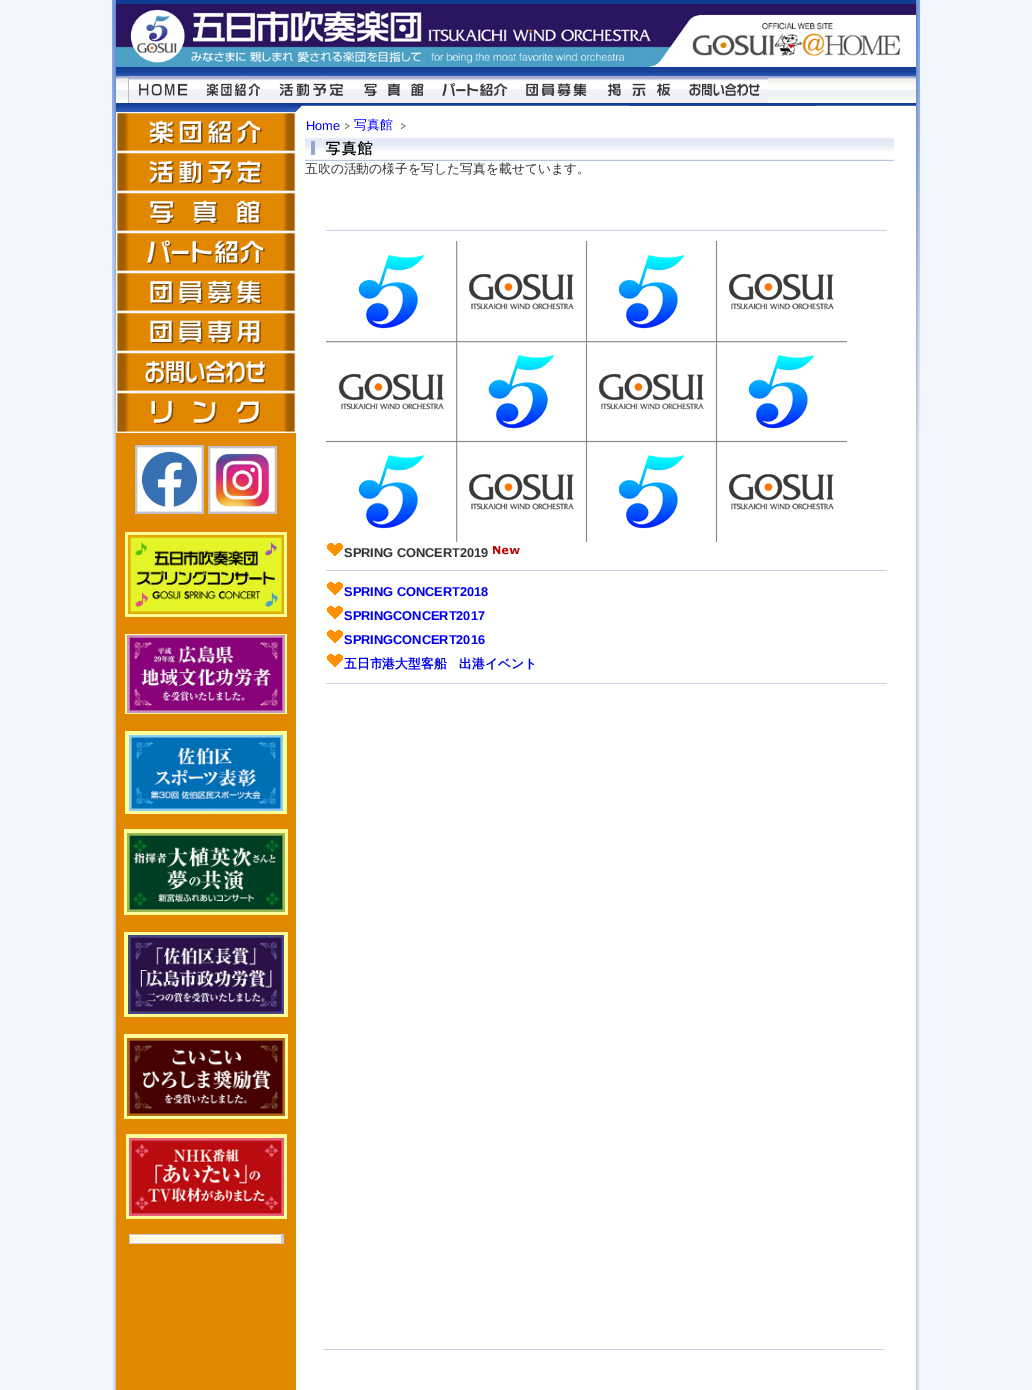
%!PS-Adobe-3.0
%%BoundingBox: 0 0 1032 1390
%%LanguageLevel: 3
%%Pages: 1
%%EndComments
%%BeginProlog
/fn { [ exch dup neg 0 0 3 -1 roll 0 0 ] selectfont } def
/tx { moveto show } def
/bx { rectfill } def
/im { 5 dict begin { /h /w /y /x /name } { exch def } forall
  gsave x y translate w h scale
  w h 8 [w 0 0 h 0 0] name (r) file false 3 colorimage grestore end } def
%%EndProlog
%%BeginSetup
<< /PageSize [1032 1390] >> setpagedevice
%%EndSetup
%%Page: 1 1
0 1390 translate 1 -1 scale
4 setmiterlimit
0.949 0.969 1 setrgbcolor
0 0 1032 1390 bx
(image0.raw) 112 432 4 958 im
(image1.raw) 112 0 4 432 im
1 setgray
116 100 800 1290 bx
(image2.raw) 116 0 800 70 im
(image3.raw) 116 4 800 63 im
(image4.raw) 116 70 800 6 im
(image5.raw) 116 76 800 24 im
(image6.raw) 128 77 1 26 im
(image7.raw) 129 76 69 27 im
(image8.raw) 198 76 71 27 im
(image9.raw) 269 76 85 27 im
(image10.raw) 354 76 80 27 im
(image11.raw) 434 76 82 27 im
(image12.raw) 516 76 81 27 im
(image13.raw) 597 76 84 27 im
(image14.raw) 681 76 87 27 im
(image15.raw) 116 103 800 9 im
0.886 0.533 0 setrgbcolor
116 433 180 957 bx
(image16.raw) 116 112 180 40 im
(image17.raw) 116 152 180 40 im
(image18.raw) 116 192 180 40 im
(image19.raw) 116 232 180 40 im
(image20.raw) 116 272 180 40 im
(image21.raw) 116 312 180 40 im
(image22.raw) 116 352 180 40 im
(image23.raw) 116 392 180 41 im
(image24.raw) 135 445 69 69 im
(image25.raw) 208 446 69 68 im
1 1 0.6 setrgbcolor
125 532 162 85 bx
(image26.raw) 128 535 156 79 im
125 634 162 80 bx
(image27.raw) 127 635 158 78 im
125 731 162 83 bx
(image28.raw) 129 735 154 76 im
124 829 164 86 bx
(image29.raw) 127 833 158 79 im
124 932 164 85 bx
(image30.raw) 128 935 156 79 im
124 1034 164 85 bx
(image31.raw) 127 1038 158 78 im
126 1134 161 85 bx
(image32.raw) 129 1138 155 78 im
0.8 setgray
129 1234 155 10 bx
1 0.988 0.898 setrgbcolor
130 1235 151 8 bx
/LiberationSans-Regular 12.8 fn
0 0 1 setrgbcolor
(Home) 306 130 tx
(image33.raw) 345 123 5 6 im
/WenQuanYiZenHei-Medium 12.8 fn
(写真館) 354 129 tx
(image33.raw) 401 123 5 6 im
(image34.raw) 305 137 589 24 im
0.2 setgray
(五吹の活動の様子を写した写真を載せています。) 305 173 tx
0.78 0.824 0.914 setrgbcolor
326 230 561 1 bx
(image35.raw) 326 241 521 301 im
(image36.raw) 327 543 16 13 im
/LiberationSans-Bold 12.8 fn
0.2 setgray
(SPRING CONCERT2019) 344 557 tx
(image37.raw) 493 546 27 9 im
0.78 0.824 0.914 setrgbcolor
326 570 561 1 bx
(image36.raw) 327 582 16 13 im
0 0 0.933 setrgbcolor
(SPRING CONCERT2018) 344 596 tx
(image36.raw) 327 606 16 13 im
(SPRINGCONCERT2017) 344 620 tx
(image36.raw) 327 630 16 13 im
(SPRINGCONCERT2016) 344 644 tx
(image36.raw) 327 654 16 13 im
/WenQuanYiZenHei-Bold 12.8 fn
(五日市港大型客船　出港イベント) 344 668 tx
0.78 0.824 0.914 setrgbcolor
326 683 561 1 bx
323 1349 561 1 bx
(image38.raw) 916 438 4 952 im
(image39.raw) 916 0 4 438 im
showpage
%%EOF
